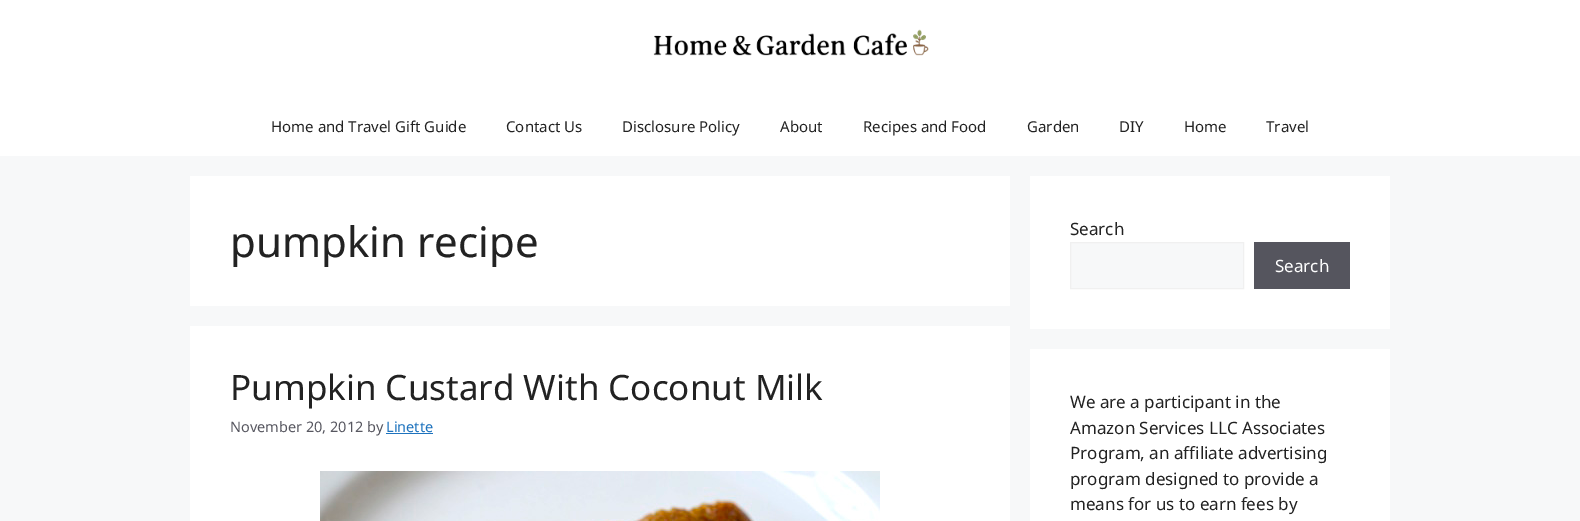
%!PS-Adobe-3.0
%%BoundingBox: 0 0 1580 521
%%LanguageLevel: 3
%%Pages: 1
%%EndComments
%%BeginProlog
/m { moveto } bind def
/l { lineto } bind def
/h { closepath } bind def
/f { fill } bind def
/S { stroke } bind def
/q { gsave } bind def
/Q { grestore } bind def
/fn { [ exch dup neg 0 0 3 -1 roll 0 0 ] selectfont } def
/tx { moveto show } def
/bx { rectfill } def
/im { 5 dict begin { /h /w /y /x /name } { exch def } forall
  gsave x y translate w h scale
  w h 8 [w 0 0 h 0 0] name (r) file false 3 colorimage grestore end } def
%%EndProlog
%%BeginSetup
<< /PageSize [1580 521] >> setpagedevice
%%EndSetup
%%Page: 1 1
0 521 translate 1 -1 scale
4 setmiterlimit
0.969 0.973 0.976 setrgbcolor
0 0 1580 521 bx
1 setgray
0 0 1580 156 bx
(image0.raw) 653 29 276 27 im
/NotoSans-Regular 15 fn
0.133 setgray
(Home and Travel Gift Guide) 271 132 tx
(Contact Us) 506 132 tx
(Disclosure Policy) 622 132 tx
(About) 780 132 tx
(Recipes and Food) 863 132 tx
(Garden) 1027 132 tx
(DIY) 1119 132 tx
(Home) 1184 132 tx
(Travel) 1266 132 tx
1 setgray
190 176 820 130 bx
/NotoSans-Regular 42 fn
0.133 setgray
(pumpkin recipe) 230 257 tx
1 setgray
190 326 820 195 bx
/NotoSans-Regular 35 fn
0.133 setgray
(Pumpkin Custard With Coconut Milk) 230 400 tx
/NotoSans-Regular 14.5 fn
0.341 0.341 0.376 setrgbcolor
(November 20, 2012 by) 230 432 tx
0.118 0.451 0.745 setrgbcolor
(Linette) 386 432 tx
386 433 47 1 bx
(image1.raw) 320 471 560 50 im
1 setgray
1030 176 360 153 bx
/NotoSans-Regular 17 fn
0.133 setgray
(Search) 1070 235 tx
0.969 0.973 0.976 setrgbcolor
1070.5 242.5 m 1243.5 242.5 l 1243.5 288.5 l 1070.5 288.5 l h q f Q
0.941 setgray
S
0.333 0.333 0.369 setrgbcolor
1254 242 96 47 bx
1 setgray
(Search) 1275 272 tx
1030 349 360 172 bx
0.133 setgray
(We are a participant in the) 1070 408 tx
(Amazon Services LLC Associates) 1070 434 tx
(Program, an affiliate advertising) 1070 459 tx
(program designed to provide a) 1070 485 tx
(means for us to earn fees by) 1070 510 tx
showpage
%%EOF
